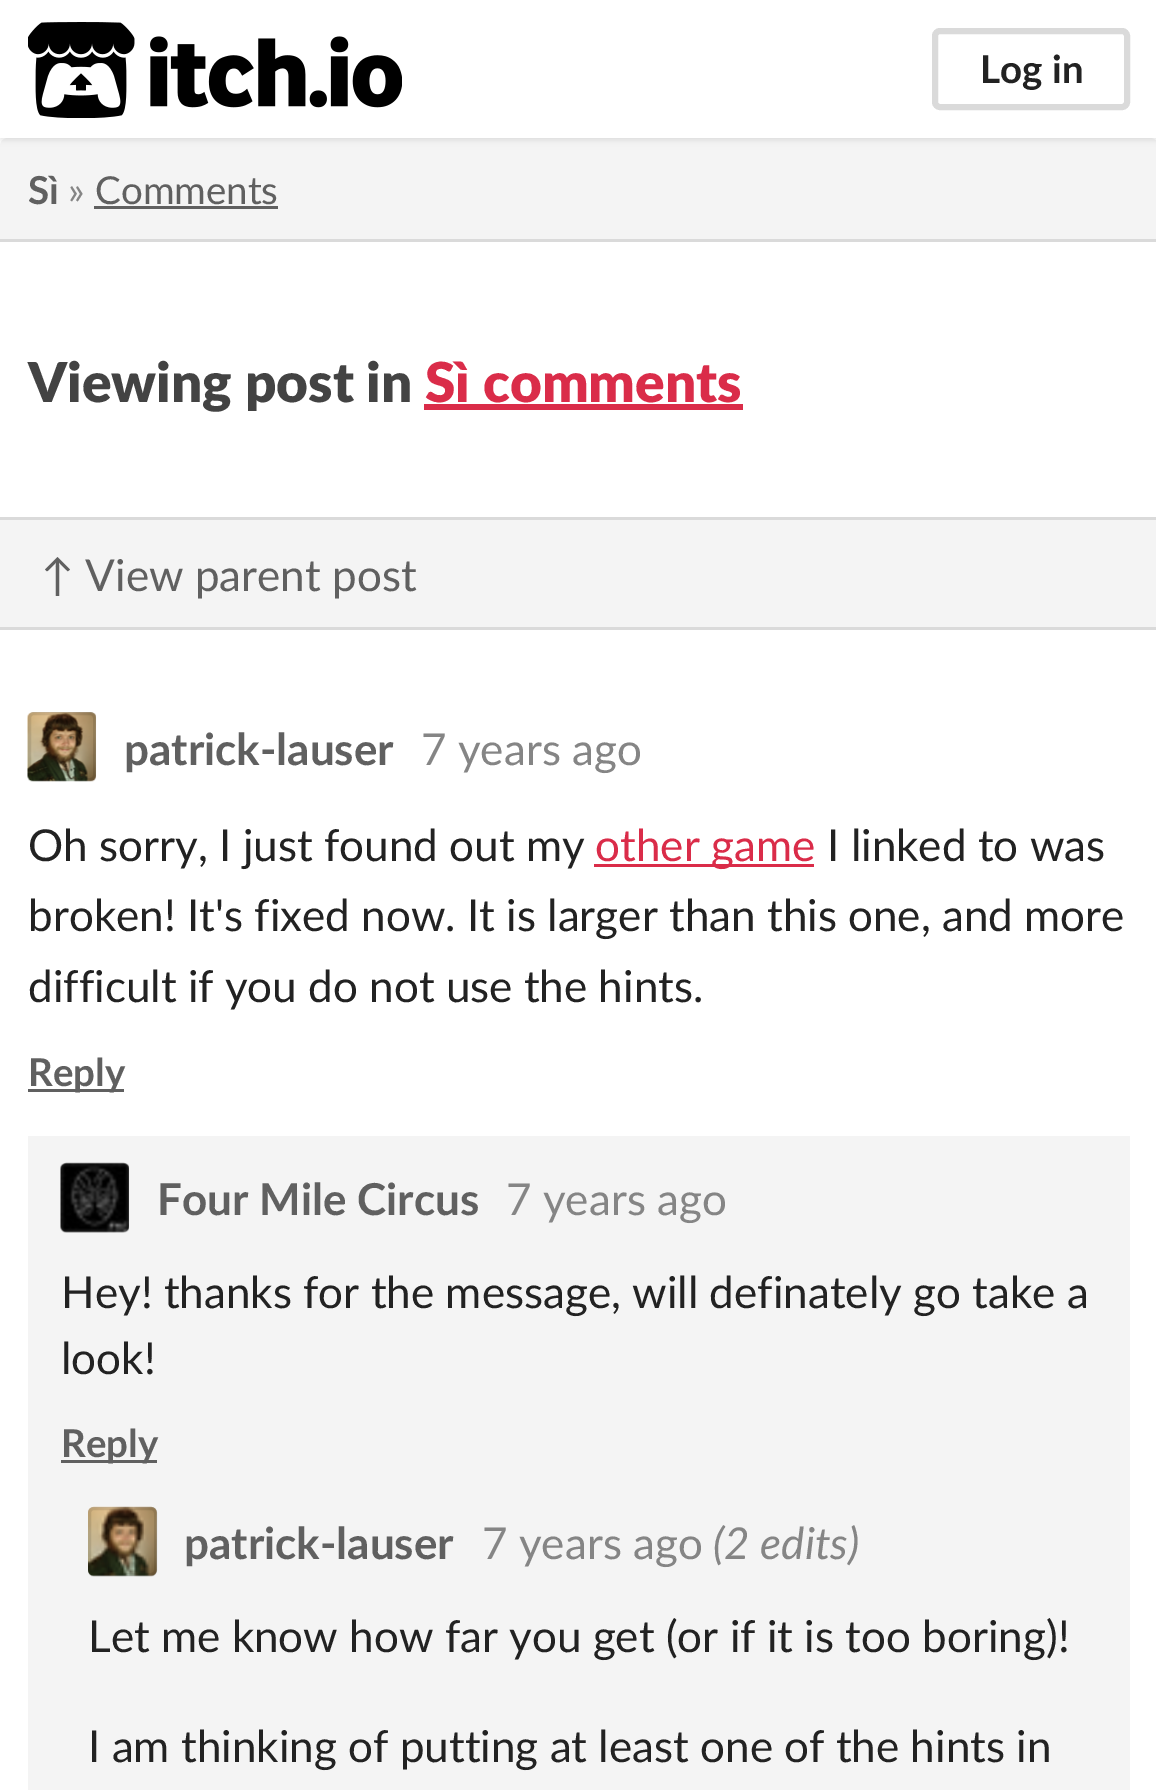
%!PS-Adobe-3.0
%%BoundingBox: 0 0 1156 1790
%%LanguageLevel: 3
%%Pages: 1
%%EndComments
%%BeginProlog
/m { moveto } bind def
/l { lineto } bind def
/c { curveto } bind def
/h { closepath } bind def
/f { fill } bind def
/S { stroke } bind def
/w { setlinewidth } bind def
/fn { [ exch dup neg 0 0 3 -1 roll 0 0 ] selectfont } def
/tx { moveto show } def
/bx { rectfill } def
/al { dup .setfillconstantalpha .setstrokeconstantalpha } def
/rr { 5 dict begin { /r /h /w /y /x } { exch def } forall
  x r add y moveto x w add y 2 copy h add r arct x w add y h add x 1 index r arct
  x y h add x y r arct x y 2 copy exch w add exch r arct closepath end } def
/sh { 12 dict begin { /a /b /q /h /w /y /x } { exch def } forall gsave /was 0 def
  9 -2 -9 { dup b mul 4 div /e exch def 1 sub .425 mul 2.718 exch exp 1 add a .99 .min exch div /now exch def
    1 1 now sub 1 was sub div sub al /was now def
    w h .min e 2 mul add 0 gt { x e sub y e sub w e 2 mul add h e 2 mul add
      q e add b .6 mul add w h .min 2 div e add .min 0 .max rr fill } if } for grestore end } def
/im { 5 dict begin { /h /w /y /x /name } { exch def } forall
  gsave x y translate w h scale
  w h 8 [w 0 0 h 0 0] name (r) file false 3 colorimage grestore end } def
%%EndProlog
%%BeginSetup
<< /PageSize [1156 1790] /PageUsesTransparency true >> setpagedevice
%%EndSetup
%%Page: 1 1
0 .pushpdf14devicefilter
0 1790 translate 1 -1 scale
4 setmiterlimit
1 setgray
0 0 1156 1790 bx
0.957 setgray
8 138 m 1150 138 l 1154.5 138 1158 141.5 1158 146 c 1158 242 l 0 242 l 0 146 l 0 141.5 3.5 138 8 138 c h f
0 setgray
0 3 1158 137 0 3 0.1 sh
1 setgray
0 0 1156 138 bx
(image0.raw) 28 22 374 96 im
0.855 setgray
6 w
935 31 192 76 5 rr S
/Lato-Bold 38.5 fn
0.133 setgray
(Log in) 980 83 tx
0.855 setgray
0 239 1156 3 bx
0.376 setgray
(Sì) 28 204 tx
/Lato-Regular 38.5 fn
0.522 setgray
(») 68 204 tx
0.376 setgray
(Comments) 95 204 tx
94 206 184 3 bx
0.855 setgray
0 517 1156 3 bx
/Lato-Black 55 fn
0.263 setgray
(Viewing post in) 28 402 tx
0.855 0.173 0.286 setrgbcolor
(Sì comments) 425 402 tx
424 404 319 6 bx
0.957 setgray
0 520 1156 107 bx
0.855 setgray
0 627 1156 3 bx
/Lato-Regular 44 fn
0.376 setgray
(↑ View parent post) 41 591 tx
(image1.raw) 27 712 70 70 im
0.1 al
0 setgray
3 w
29.5 713.5 65 66 4.5 rr S
0.95 al
1 setgray
28 w
110 707 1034 79 rectstroke
/Lato-Bold 44 fn
1 al
0.376 setgray
(patrick-lauser) 124 765 tx
/Lato-Regular 44 fn
0.522 setgray
(7 years ago) 421 765 tx
0.133 setgray
(Oh sorry, I just found out my) 28 861 tx
0.855 0.173 0.286 setrgbcolor
594 864 220 3 bx
(other game) 595 861 tx
0.133 setgray
(I linked to was) 827 861 tx
(broken! It's fixed now. It is larger than this one, and more) 28 931 tx
(difficult if you do not use the hints.) 28 1002 tx
0.376 setgray
28 1089 96 3 bx
/Lato-Bold 38.5 fn
(Reply) 28 1086 tx
0.957 setgray
28 1136 1102 654 bx
0.765 setgray
61 1163 68 69 6 rr f
(image2.raw) 60 1162 70 71 im
0.1 al
0 setgray
3 w
62.5 1164.5 65 66 4.5 rr S
0.95 al
0.957 setgray
28 w
143 1158 968 79 rectstroke
/Lato-Bold 44 fn
1 al
0.376 setgray
(Four Mile Circus) 157 1215 tx
/Lato-Regular 44 fn
0.522 setgray
(7 years ago) 506 1215 tx
0.133 setgray
(Hey! thanks for the message, will definately go take a) 61 1308 tx
(look!) 61 1374 tx
0.376 setgray
61 1460 96 3 bx
/Lato-Bold 38.5 fn
(Reply) 61 1457 tx
0.765 setgray
88 1507 69 69 6 rr f
(image3.raw) 88 1506 69 71 im
0.1 al
0 setgray
3 w
89.5 1508.5 66 66 4.5 rr S
/Lato-Bold 44 fn
1 al
0.376 setgray
(patrick-lauser) 184 1559 tx
/Lato-Regular 44 fn
0.522 setgray
(7 years ago) 482 1559 tx
/Lato-Italic 44 fn
(\(2 edits\)) 713 1559 tx
/Lato-Regular 44 fn
0.133 setgray
(Let me know how far you get \(or if it is too boring\)!) 88 1652 tx
(I am thinking of putting at least one of the hints in) 88 1762 tx
.poppdf14devicefilter showpage
%%EOF
